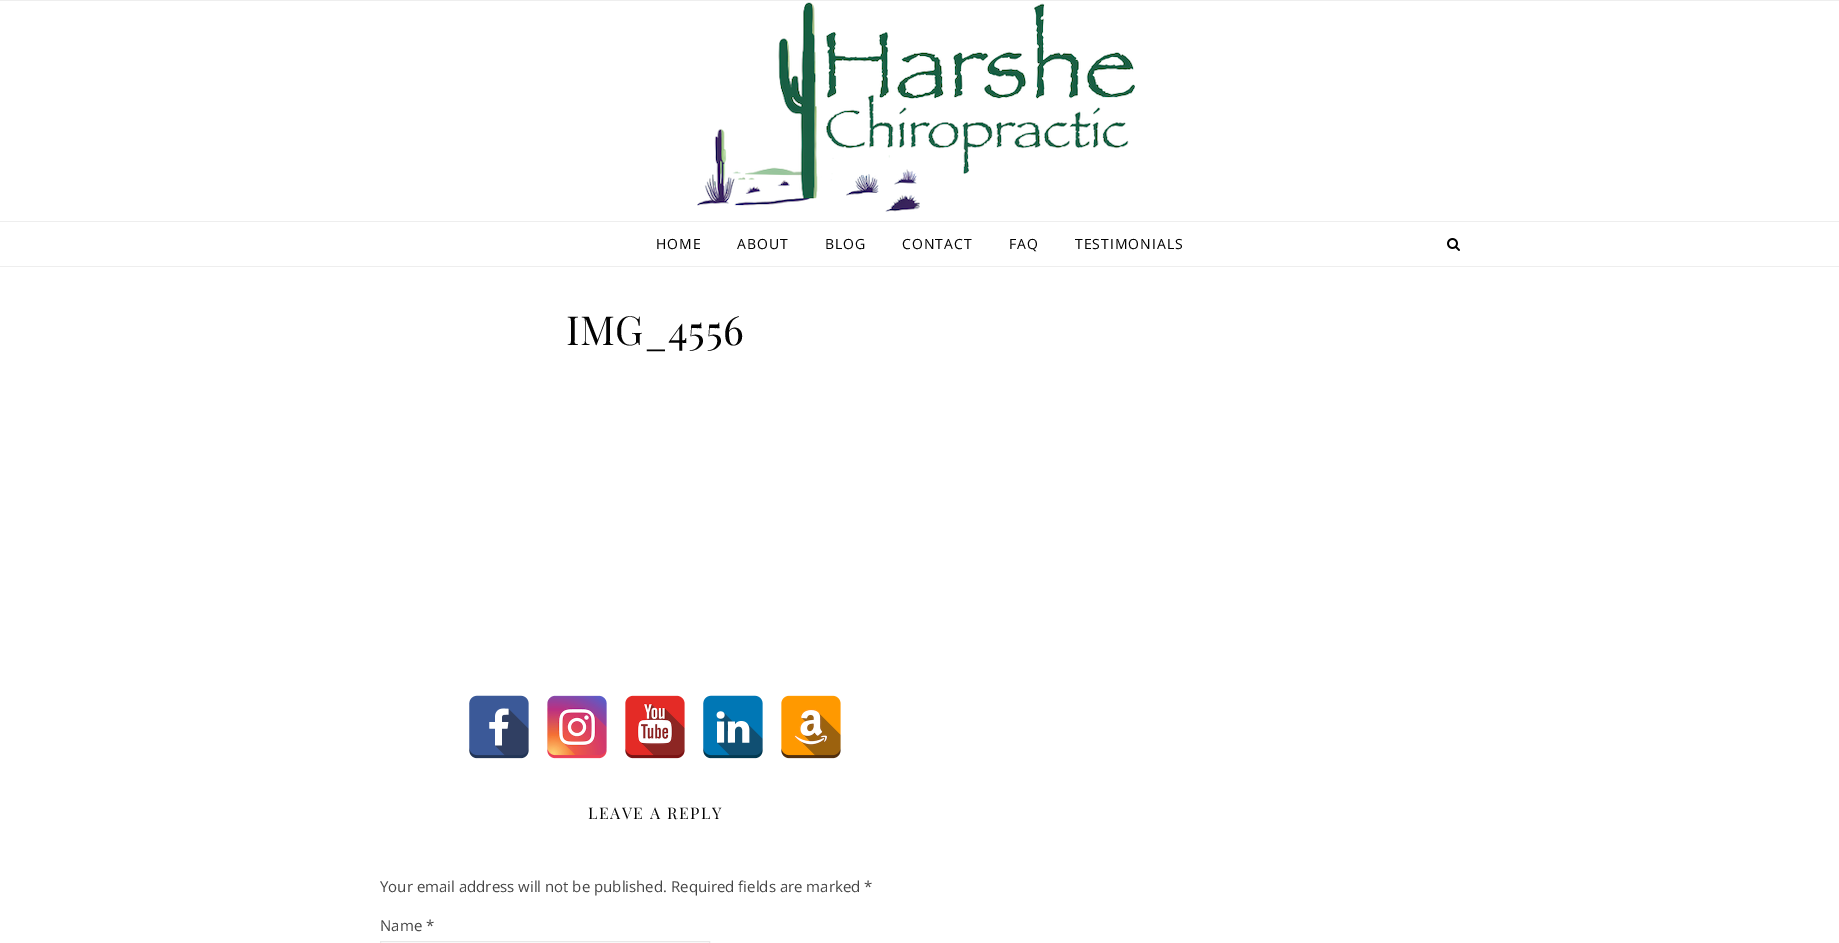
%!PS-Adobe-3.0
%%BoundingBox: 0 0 1839 943
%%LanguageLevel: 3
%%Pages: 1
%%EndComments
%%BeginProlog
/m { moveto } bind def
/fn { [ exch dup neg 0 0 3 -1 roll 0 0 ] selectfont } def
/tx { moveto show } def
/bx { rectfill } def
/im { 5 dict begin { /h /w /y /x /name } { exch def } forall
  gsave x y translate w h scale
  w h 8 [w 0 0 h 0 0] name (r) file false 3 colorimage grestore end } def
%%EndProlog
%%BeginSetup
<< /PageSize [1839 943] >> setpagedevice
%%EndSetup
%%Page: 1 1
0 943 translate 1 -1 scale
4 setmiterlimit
1 setgray
0 0 1839 943 bx
0.933 setgray
0 0 1839 1 bx
(image0.raw) 697 2 438 210 im
0 221 1839 1 bx
0 266 1839 1 bx
/OpenSans-Regular 14 fn
0.012 setgray
656 249 m 1 0 (HOME) ashow
737 249 m 1 0 (ABOUT) ashow
825 249 m 1 0 (BLOG) ashow
902 249 m 1 0 (CONTACT) ashow
1009 249 m 1 0 (FAQ) ashow
1075 249 m 1 0 (TESTIMONIALS) ashow
(image1.raw) 1447 238 13 13 im
/PlayfairDisplay-Regular 40 fn
566 345 m 0.5 0 (IMG_4556) ashow
(image2.raw) 469 695 60 64 im
(image3.raw) 547 695 60 64 im
(image4.raw) 625 695 60 64 im
(image5.raw) 703 695 60 64 im
(image6.raw) 781 695 60 64 im
/PlayfairDisplay-Regular 16 fn
588 819 m 1.5 0 (LEAVE A REPLY) ashow
/OpenSans-Regular 15 fn
0.275 setgray
(Your email address will not be published. Required fields are marked *) 380 892 tx
(Name *) 380 931 tx
0.91 setgray
380.5 941.5 329 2 rectstroke
showpage
%%EOF
